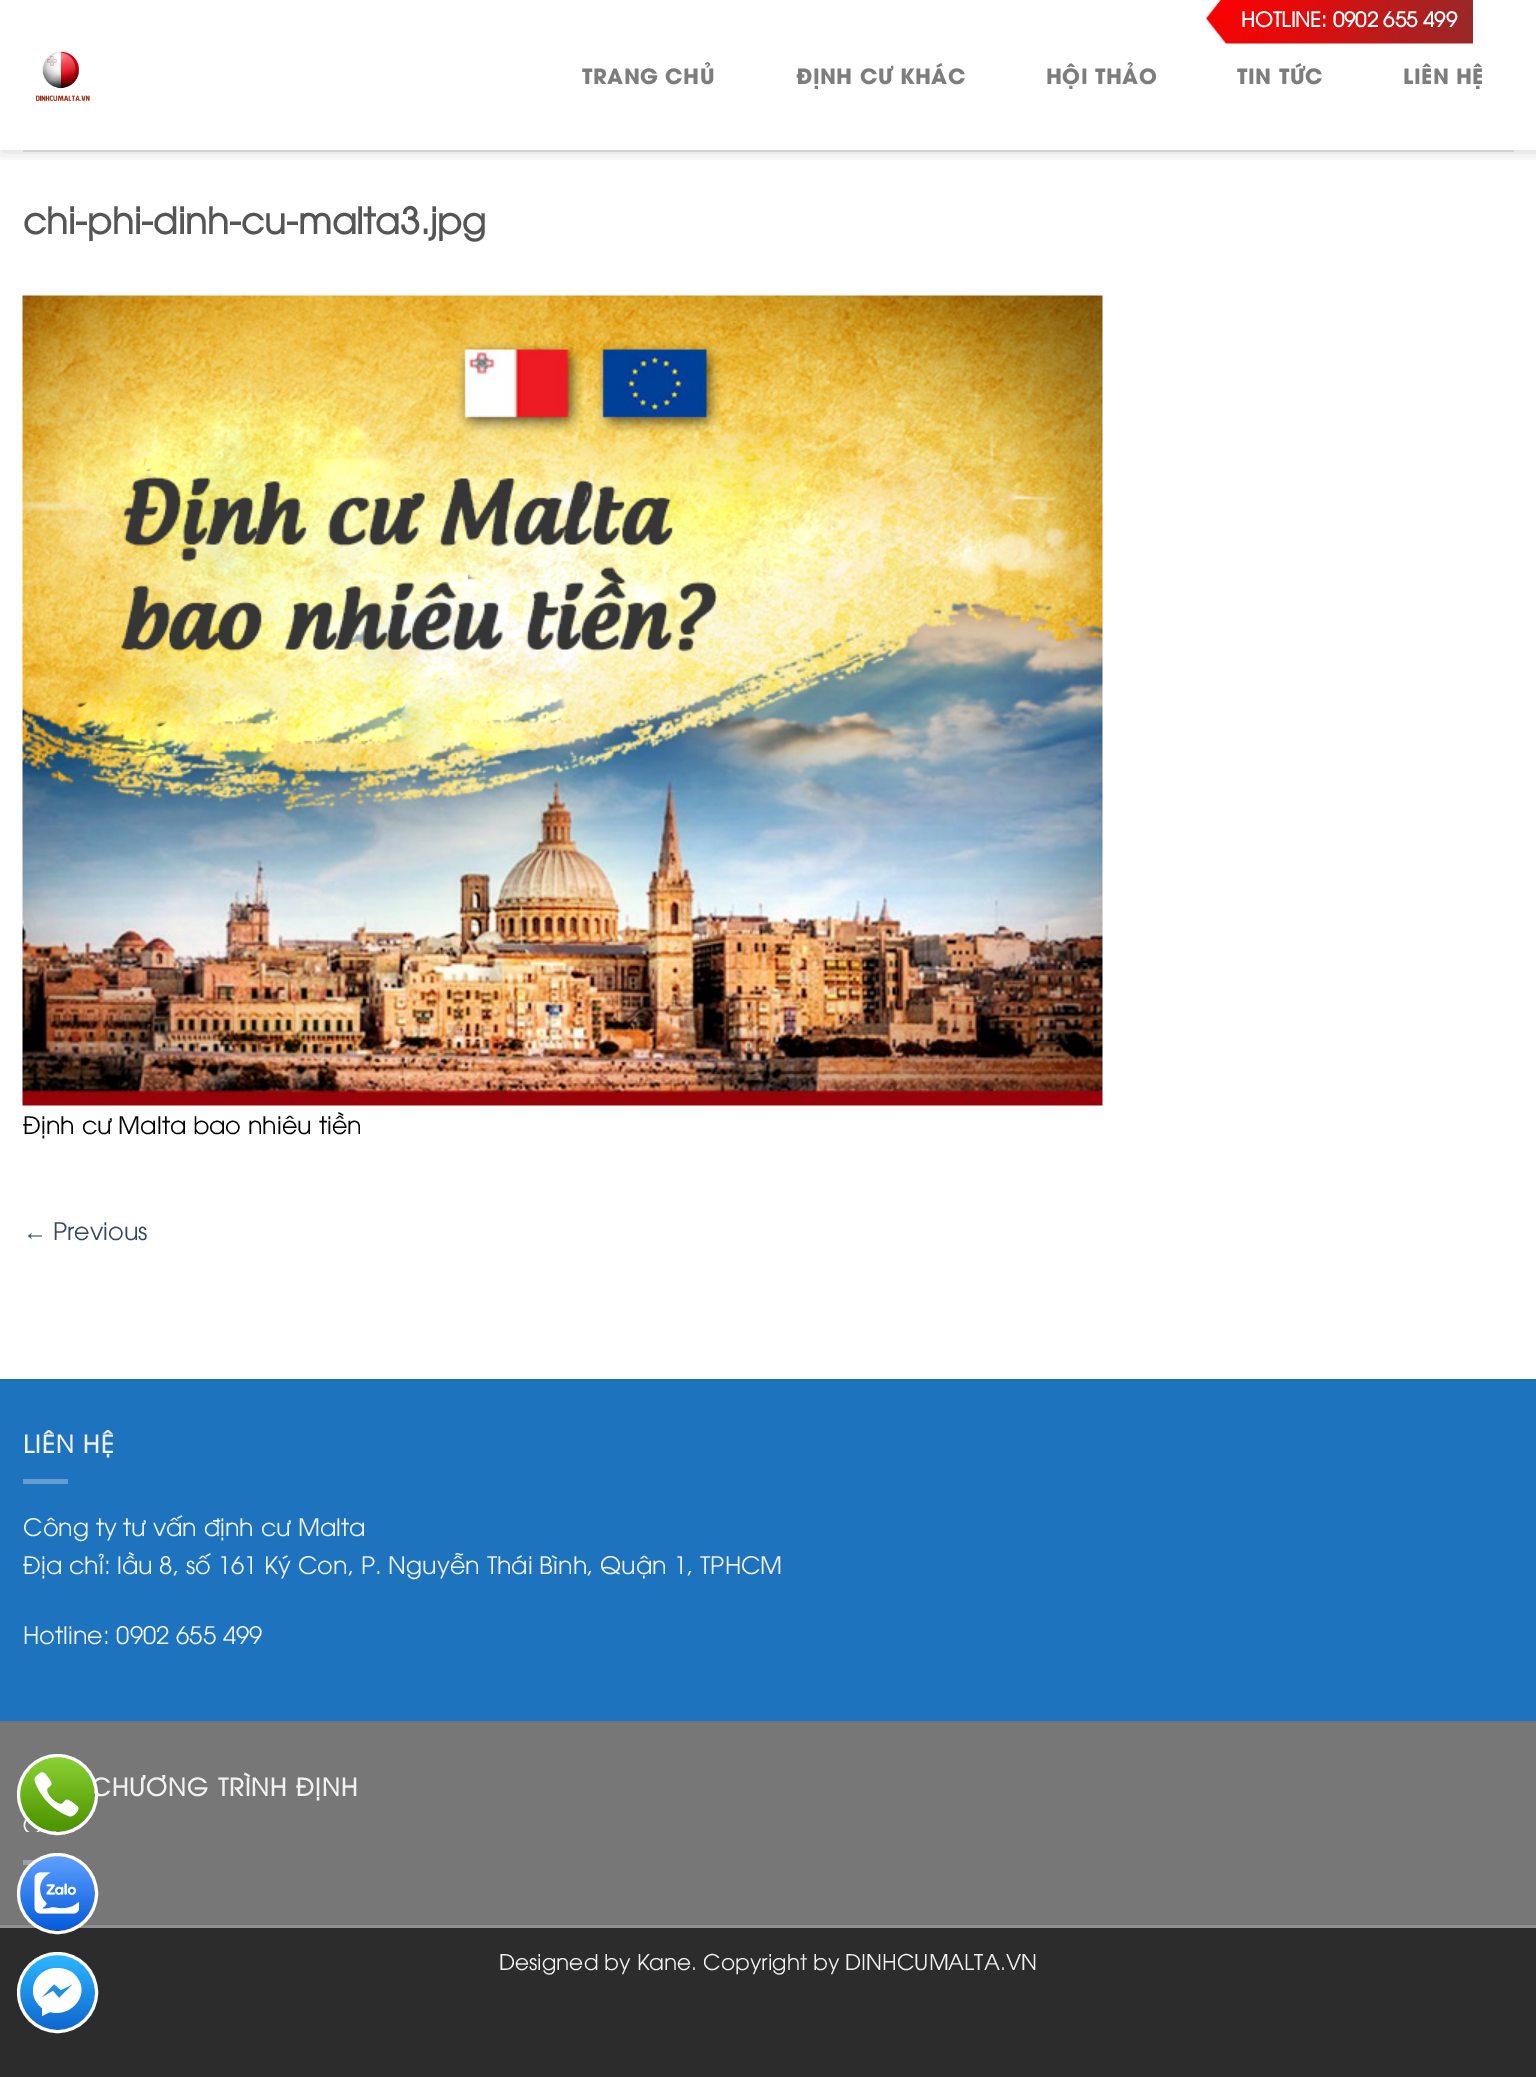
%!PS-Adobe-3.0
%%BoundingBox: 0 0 1536 2077
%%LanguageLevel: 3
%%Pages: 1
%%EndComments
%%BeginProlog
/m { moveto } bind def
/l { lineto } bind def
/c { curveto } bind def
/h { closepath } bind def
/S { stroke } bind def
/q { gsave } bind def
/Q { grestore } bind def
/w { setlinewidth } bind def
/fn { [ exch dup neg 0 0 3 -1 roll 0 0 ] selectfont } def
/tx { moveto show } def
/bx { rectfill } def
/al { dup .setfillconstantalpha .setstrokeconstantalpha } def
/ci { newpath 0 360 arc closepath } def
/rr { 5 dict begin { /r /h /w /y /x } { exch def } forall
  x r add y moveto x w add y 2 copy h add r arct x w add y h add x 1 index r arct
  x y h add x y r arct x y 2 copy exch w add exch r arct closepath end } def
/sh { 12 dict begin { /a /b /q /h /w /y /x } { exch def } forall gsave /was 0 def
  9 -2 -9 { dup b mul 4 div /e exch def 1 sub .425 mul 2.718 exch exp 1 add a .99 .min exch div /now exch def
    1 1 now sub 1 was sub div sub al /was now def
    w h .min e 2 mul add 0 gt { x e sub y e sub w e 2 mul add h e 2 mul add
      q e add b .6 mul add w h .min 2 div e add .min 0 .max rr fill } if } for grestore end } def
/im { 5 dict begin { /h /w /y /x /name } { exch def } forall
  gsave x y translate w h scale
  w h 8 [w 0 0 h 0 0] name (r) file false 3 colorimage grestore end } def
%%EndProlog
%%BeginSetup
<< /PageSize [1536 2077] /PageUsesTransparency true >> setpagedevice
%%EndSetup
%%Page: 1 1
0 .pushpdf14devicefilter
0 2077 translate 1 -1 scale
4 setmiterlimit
0.173 setgray
0 0 1536 2077 bx
1 setgray
0 0 1536 1379 bx
q
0 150 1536 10 rectclip
0 setgray
2 2 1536 150 0 7.5 0.15 sh
Q
(image0.raw) 36 51 54 51 im
(image1.raw) 1206 0 267 44 im
/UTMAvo-Bold 20.4 fn
(HOTLINE: 0902 655 499) 1241 27 tx
/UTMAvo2-Bold 21 fn
0.49 setgray
582 84 m 0.5 0 (TRANG CHỦ) ashow
796 84 m 0.5 0 (ĐỊNH CƯ KHÁC) ashow
1046 84 m 0.5 0 (HỘI THẢO) ashow
1237 84 m 0.5 0 (TIN TỨC) ashow
1403 84 m 0.5 0 (LIÊN HỆ) ashow
0.824 setgray
23 150 1491 2 bx
/UTMAvo-Bold 36 fn
0.333 setgray
(chi-phi-dinh-cu-malta3.jpg) 23 234 tx
(image2.raw) 22 295 1081 811 im
/UTMAvo-Regular 24 fn
0 setgray
(Định cư Malta bao nhiêu tiền) 23 1134 tx
/LiberationSerif-Regular 24 fn
0.2 0.282 0.384 setrgbcolor
(←) 23 1240 tx
/UTMAvo-Regular 24 fn
(Previous) 53 1240 tx
0.118 0.451 0.745 setrgbcolor
0 1381 1536 340 bx
0.114 0.427 0.71 setrgbcolor
0 1379 1536 2 bx
/UTMAvo-Bold 24 fn
0.945 setgray
23 1453 m 1.25 0 (LIÊN HỆ) ashow
0.384 0.616 0.824 setrgbcolor
23 1479 45 5 bx
/UTMAvo-Regular 24 fn
0.945 setgray
(Công ty tư vấn định cư Malta) 23 1536 tx
(Địa chỉ: lầu 8, số 161 Ký Con, P. Nguyễn Thái Bình, Quận 1, TPHCM) 23 1574 tx
(Hotline: 0902 655 499) 23 1644 tx
0.467 setgray
0 1723 1536 202 bx
0.443 setgray
0 1721 1536 2 bx
/UTMAvo-Bold 24 fn
0.945 setgray
91 1796 m 1.25 0 (CHƯƠNG TRÌNH ĐỊNH) ashow
0.627 setgray
23 1860 17 5 bx
0.569 0.565 0.565 setrgbcolor
0 1925 1536 3 bx
/UTMAvo-Regular 21.6 fn
0.945 setgray
(Designed by Kane. Copyright by DINHCUMALTA.VN) 499 1970 tx
(image3.raw) 20 1757 75 75 im
1 setgray
3 w
57.5 1794.5 39 ci S
(image4.raw) 20 1856 75 75 im
57.5 1893.5 39 ci S
q 57 1992 37.5 ci clip newpath
<< /ShadingType 2 /ColorSpace /DeviceRGB /Coords [56 2028 56 1955] /Extend [true true] /Function << /FunctionType 2 /Domain [0 1] /C0 [0.067 0.408 0.812] /C1 [0.173 0.718 1] /N 1 >> >> shfill Q
57 1968 m 35 1968 24 1994 42 2008 c 42 2016 l 50 2012 l 72 2018 93 1992 74 1974 c 70 1970 63 1968 57 1968 c h 59 1998 m 53 1991 l 41 1998 l 54 1984 l 61 1990 l 73 1984 l h eofill
57.5 1992.5 39 ci S
.poppdf14devicefilter showpage
%%EOF
